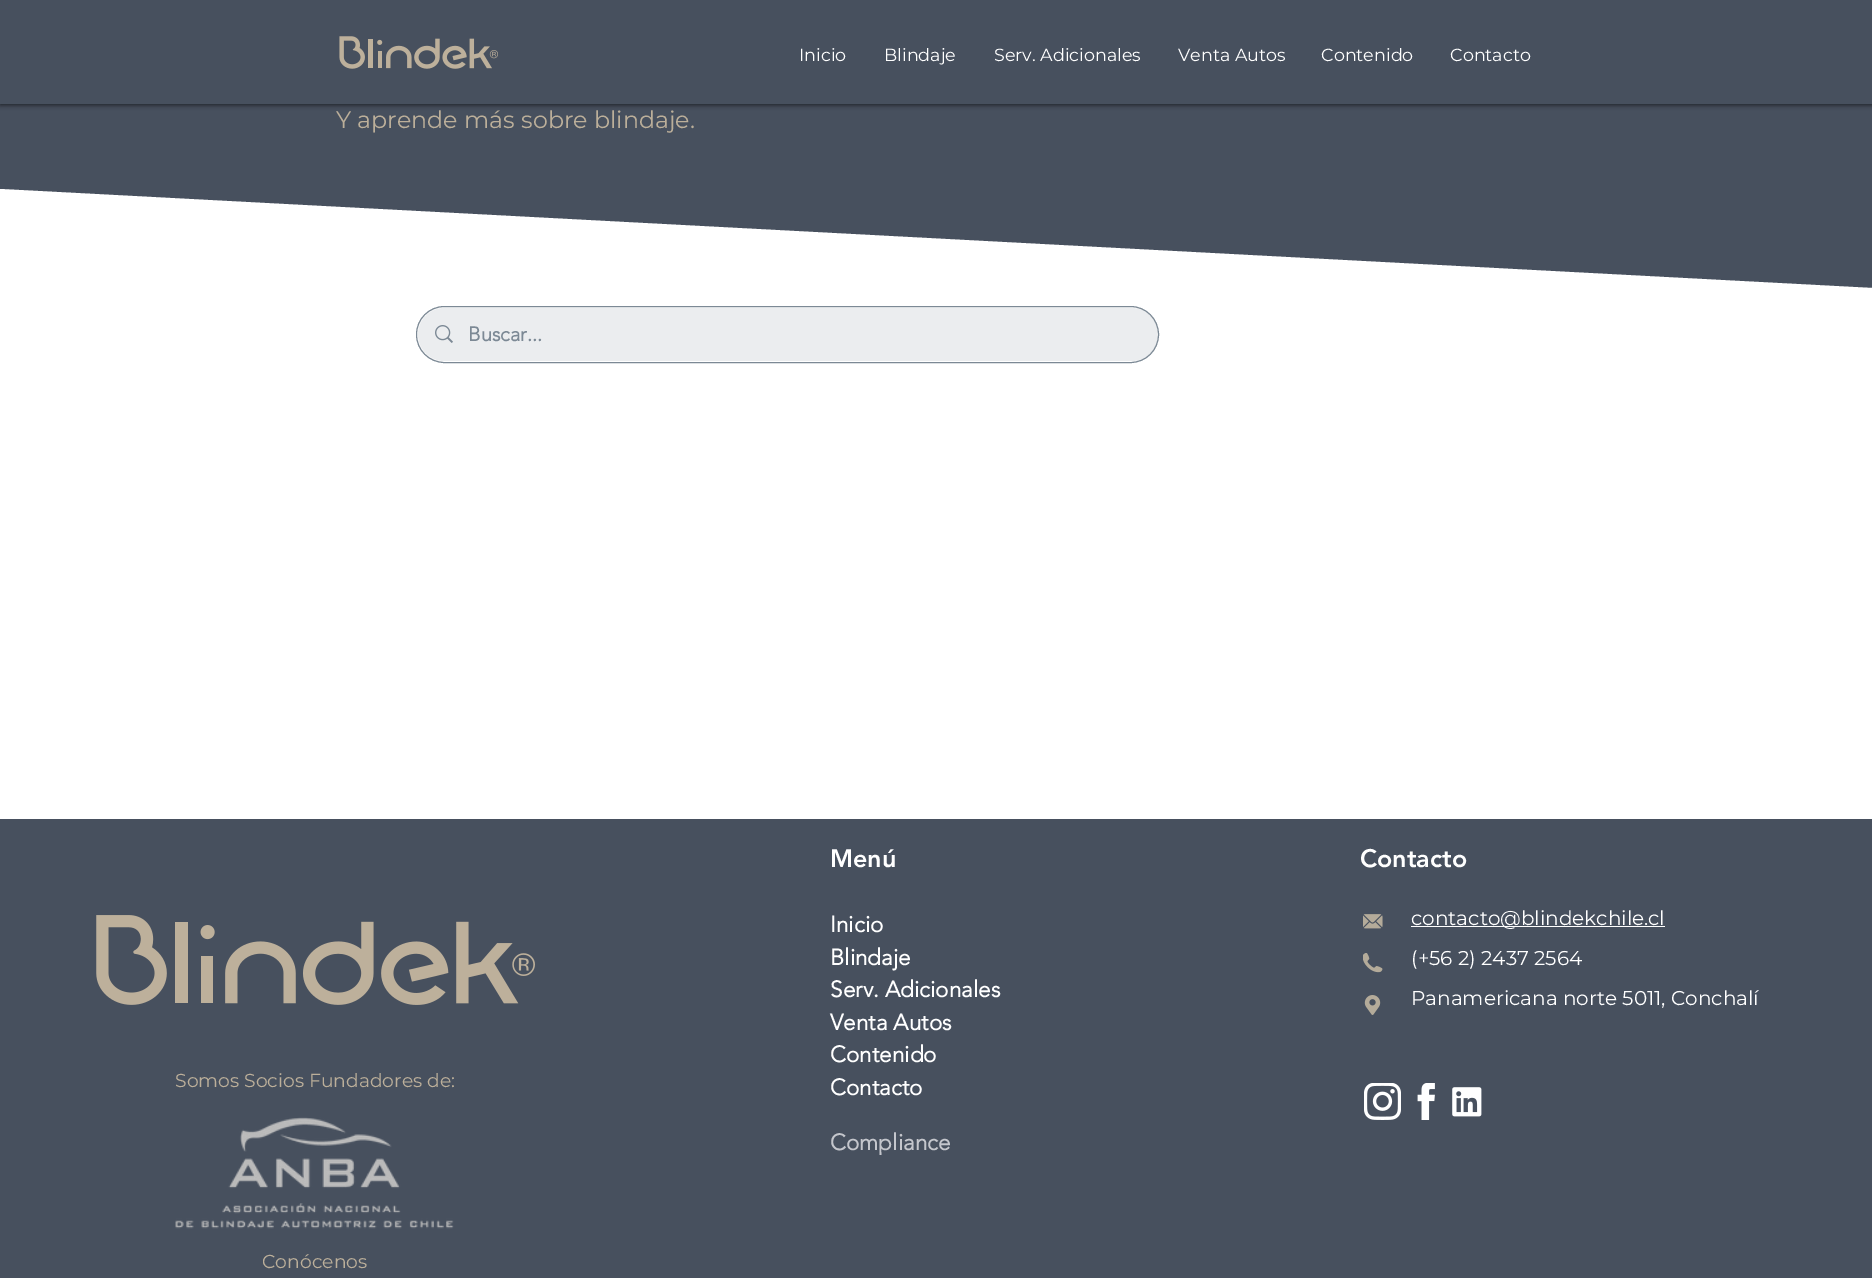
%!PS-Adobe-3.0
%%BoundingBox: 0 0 1872 1278
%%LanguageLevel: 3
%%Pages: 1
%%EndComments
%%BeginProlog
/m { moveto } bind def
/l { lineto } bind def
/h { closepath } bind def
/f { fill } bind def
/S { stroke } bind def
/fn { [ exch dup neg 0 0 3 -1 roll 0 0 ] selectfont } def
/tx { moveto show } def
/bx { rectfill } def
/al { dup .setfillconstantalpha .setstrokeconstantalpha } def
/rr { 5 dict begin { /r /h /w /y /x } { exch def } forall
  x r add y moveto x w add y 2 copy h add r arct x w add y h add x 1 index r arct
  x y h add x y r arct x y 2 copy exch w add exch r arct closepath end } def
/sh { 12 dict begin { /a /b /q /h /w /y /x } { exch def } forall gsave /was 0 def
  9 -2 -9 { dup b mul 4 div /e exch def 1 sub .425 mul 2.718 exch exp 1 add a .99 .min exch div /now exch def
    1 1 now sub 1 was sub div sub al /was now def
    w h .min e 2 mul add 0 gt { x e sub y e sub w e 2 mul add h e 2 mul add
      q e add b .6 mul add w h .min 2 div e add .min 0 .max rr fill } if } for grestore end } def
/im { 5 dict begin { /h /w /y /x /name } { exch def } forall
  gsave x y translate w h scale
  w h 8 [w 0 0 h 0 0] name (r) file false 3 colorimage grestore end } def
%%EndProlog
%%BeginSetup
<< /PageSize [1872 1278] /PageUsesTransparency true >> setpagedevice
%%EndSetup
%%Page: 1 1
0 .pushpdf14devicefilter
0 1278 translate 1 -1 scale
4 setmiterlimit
0.278 0.314 0.369 setrgbcolor
0 0 1872 1278 bx
0 setgray
0 1 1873 104 0 2.5 0.6 sh
0.278 0.314 0.369 setrgbcolor
0 0 1872 104 bx
(image0.raw) 339 36 159 33 im
/Montserrat-Regular 17.5 fn
1 setgray
(Inicio) 799 61 tx
(Blindaje) 884 61 tx
(Serv. Adicionales) 994 61 tx
(Venta Autos) 1178 61 tx
(Contenido) 1321 61 tx
(Contacto) 1450 61 tx
/Montserrat-Regular 23.75 fn
0.737 0.686 0.604 setrgbcolor
(Y aprende más sobre blindaje.) 336 128 tx
1 setgray
1872 288 m 0 189 l 0 288 l h f
0 288 1872 531 bx
0.486 0.537 0.584 setrgbcolor
416.5 306.5 742 56 28 rr S
0.15 al
418 308 740 53 26.5 rr f
1 al
(image1.raw) 435 325 18 18 im
/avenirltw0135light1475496-Bold 20 fn
(Buscar...) 468 341 tx
(image2.raw) 96 915 439 90 im
/Montserrat-Regular 18.75 fn
0.737 0.686 0.604 setrgbcolor
(Somos Socios Fundadores de:) 175 1087 tx
(image3.raw) 175 1117 279 112 im
(Conócenos) 262 1268 tx
/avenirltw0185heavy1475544-Black 25 fn
1 setgray
(Menú) 830 867 tx
/avenirltw0135light1475496-Bold 22.5 fn
(Inicio) 830 932 tx
(Blindaje) 830 965 tx
(Serv. Adicionales) 830 997 tx
(Venta Autos) 830 1030 tx
(Contenido) 830 1062 tx
(Contacto) 830 1095 tx
0.769 0.776 0.8 setrgbcolor
(Compliance) 830 1150 tx
/avenirltw0185heavy1475544-Black 25 fn
1 setgray
(Contacto) 1360 867 tx
(image4.raw) 1363 914 20 15 im
1411 926 254 1 bx
/Montserrat-Regular 20 fn
(contacto@blindekchile.cl) 1411 925 tx
(\(+56 2\) 2437 2564) 1411 965 tx
(Panamericana norte 5011, Conchalí) 1411 1005 tx
(image5.raw) 1363 953 20 20 im
(image6.raw) 1364 995 17 20 im
(image7.raw) 1364 1083 37 37 im
(image8.raw) 1417 1083 18 37 im
(image9.raw) 1452 1087 30 30 im
.poppdf14devicefilter showpage
%%EOF
